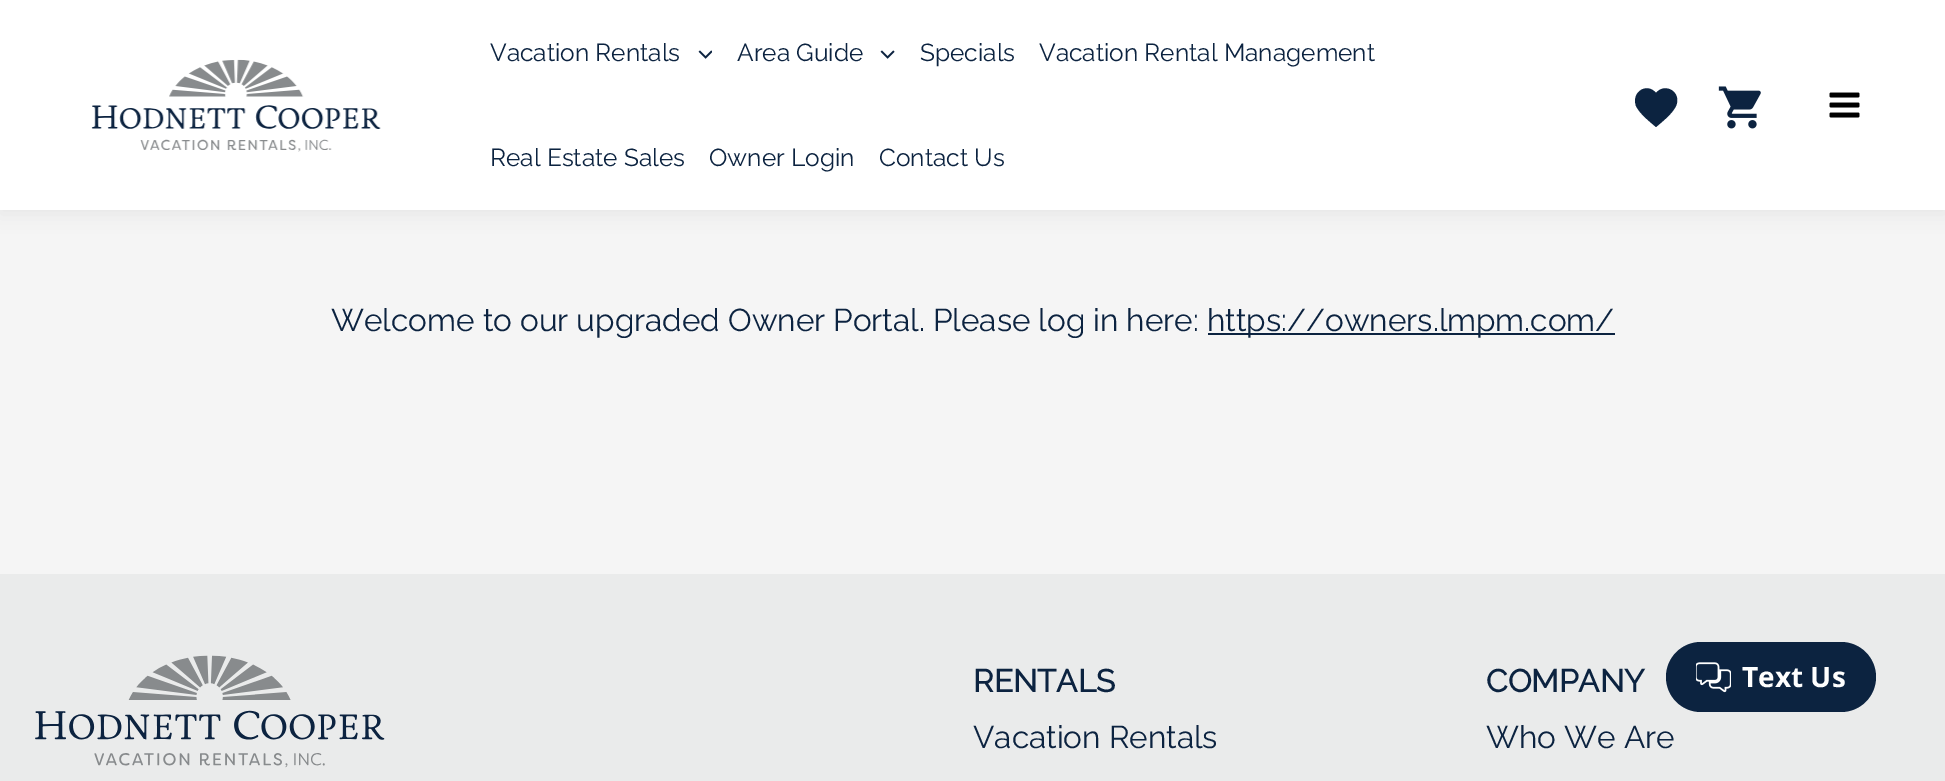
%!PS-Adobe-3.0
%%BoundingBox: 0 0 1945 781
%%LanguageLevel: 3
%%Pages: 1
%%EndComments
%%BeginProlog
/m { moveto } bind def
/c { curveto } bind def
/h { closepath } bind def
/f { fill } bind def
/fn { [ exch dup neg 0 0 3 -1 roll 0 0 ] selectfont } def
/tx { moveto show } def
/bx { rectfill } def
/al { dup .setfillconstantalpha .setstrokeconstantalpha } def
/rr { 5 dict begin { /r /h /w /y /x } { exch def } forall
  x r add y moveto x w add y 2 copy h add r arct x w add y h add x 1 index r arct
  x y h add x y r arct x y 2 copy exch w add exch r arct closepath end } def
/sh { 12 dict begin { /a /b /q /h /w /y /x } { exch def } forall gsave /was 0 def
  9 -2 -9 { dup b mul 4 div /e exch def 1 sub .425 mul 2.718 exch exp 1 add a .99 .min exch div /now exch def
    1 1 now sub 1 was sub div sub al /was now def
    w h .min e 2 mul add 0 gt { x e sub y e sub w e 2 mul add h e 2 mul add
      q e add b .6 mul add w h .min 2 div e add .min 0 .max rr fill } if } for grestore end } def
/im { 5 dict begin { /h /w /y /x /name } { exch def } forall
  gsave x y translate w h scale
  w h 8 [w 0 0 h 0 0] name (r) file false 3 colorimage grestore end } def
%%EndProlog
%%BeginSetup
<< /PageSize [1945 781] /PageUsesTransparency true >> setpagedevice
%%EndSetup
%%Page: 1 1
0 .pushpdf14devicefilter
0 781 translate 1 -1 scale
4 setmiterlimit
0.961 setgray
0 0 1945 781 bx
0.141 0.196 0.259 setrgbcolor
0 4 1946 210 0 9 0.07 sh
1 setgray
0 0 1945 210 bx
(image0.raw) 91 59 290 93 im
/Raleway-Thin 24.5 fn
0.047 0.137 0.251 setrgbcolor
(Vacation Rentals) 490 61 tx
(image1.raw) 698 50 14 9 im
(Area Guide) 737 61 tx
(image2.raw) 880 50 15 9 im
(Specials) 920 61 tx
(Vacation Rental Management) 1039 61 tx
(Real Estate Sales) 490 166 tx
(Owner Login) 709 166 tx
(Contact Us) 879 166 tx
1656 127 m 1649 121 1640 114 1636 106 c 1631 92 1647 82 1656 93 c 1665 82 1682 92 1676 106 c 1672 114 1663 121 1656 127 c h f
(image3.raw) 1718 86 43 43 im
(image4.raw) 1829 92 31 26 im
/Raleway-Thin 31.5 fn
(Welcome to our upgraded Owner Portal. Please log in here:) 331 331 tx
1208 333 407 2 bx
(https://owners.lmpm.com/) 1207 331 tx
0.918 0.922 0.922 setrgbcolor
0 574 1945 207 bx
(image5.raw) 35 655 350 113 im
/Raleway-Bold 31.5 fn
0.047 0.137 0.251 setrgbcolor
(RENTALS) 973 692 tx
/Raleway-Thin 31.5 fn
(Vacation Rentals) 973 748 tx
/Raleway-Bold 31.5 fn
(COMPANY) 1486 692 tx
/Raleway-Thin 31.5 fn
(Who We Are) 1486 748 tx
1666 642 210 70 35 rr f
(image6.raw) 1696 662 35 31 im
/OpenSans-Bold 28 fn
1 setgray
(Text Us) 1742 687 tx
.poppdf14devicefilter showpage
%%EOF
